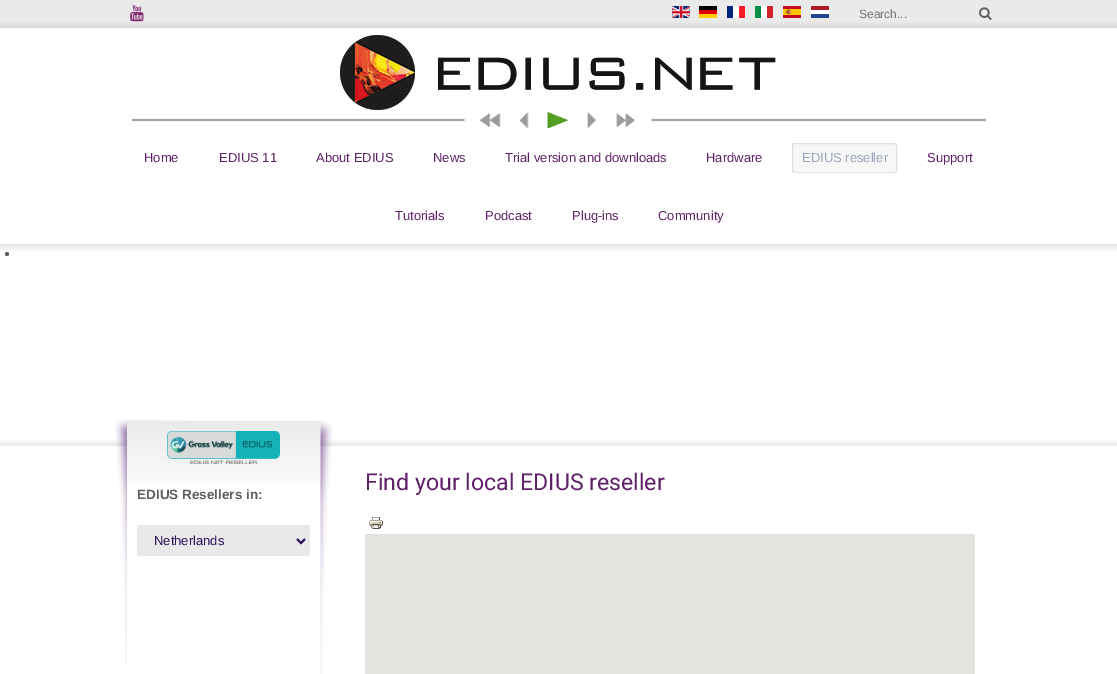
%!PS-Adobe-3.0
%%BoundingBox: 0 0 1117 674
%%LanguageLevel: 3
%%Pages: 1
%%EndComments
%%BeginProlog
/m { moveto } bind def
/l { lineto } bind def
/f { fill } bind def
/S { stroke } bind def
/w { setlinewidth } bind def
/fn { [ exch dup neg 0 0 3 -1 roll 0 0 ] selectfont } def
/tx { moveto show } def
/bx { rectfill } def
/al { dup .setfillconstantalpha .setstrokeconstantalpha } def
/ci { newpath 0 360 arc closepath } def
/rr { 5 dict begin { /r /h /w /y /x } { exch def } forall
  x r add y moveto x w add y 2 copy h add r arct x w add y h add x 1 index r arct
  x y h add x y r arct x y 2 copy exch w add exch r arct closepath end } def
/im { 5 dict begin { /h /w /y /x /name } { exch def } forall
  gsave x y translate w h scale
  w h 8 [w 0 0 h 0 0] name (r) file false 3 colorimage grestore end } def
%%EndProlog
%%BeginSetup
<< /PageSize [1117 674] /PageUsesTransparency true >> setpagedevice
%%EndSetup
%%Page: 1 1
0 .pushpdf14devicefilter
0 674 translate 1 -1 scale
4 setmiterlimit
1 setgray
0 0 1117 674 bx
(image0.raw) 0 0 1117 28 im
(image1.raw) 130 5 14 17 im
(image2.raw) 672 6 18 12 im
(image3.raw) 699 6 18 12 im
(image4.raw) 727 6 18 12 im
(image5.raw) 755 6 18 12 im
(image6.raw) 783 6 18 12 im
(image7.raw) 811 6 18 12 im
/LiberationSans-Regular 12 fn
0.459 setgray
(Search...) 859 18 tx
(image8.raw) 979 7 13 13 im
(image9.raw) 132 112 854 17 im
(image10.raw) 340 35 436 75 im
/LiberationSans-Regular 13 fn
0.373 0.129 0.404 setrgbcolor
(Home) 144 162 tx
(EDIUS 11) 219 162 tx
(About EDIUS) 316 162 tx
(News) 433 162 tx
(Trial version and downloads) 505 162 tx
(Hardware) 706 162 tx
0.969 setgray
792 143 105 29 bx
0.1 al
0 setgray
792.5 143.5 104 29 2.5 rr S
1 al
0.6 0.647 0.722 setrgbcolor
(EDIUS reseller) 802 162 tx
0.373 0.129 0.404 setrgbcolor
(Support) 927 162 tx
(Tutorials) 395 220 tx
(Podcast) 485 220 tx
(Plug-ins) 572 220 tx
(Community) 658 220 tx
(image11.raw) 0 244 1117 7 im
0.369 setgray
7 254 2 ci f
(image12.raw) 0 440 1117 6 im
/Roboto-Regular 23.1 fn
0.373 0.129 0.404 setrgbcolor
(Find your local EDIUS reseller) 365 490 tx
(image13.raw) 369 517 14 12 im
0.898 0.89 0.875 setrgbcolor
365 534 610 140 bx
(image14.raw) 317 420 15 254 im
(image15.raw) 115 419 78 247 im
1 setgray
127 421 193 110 bx
(image16.raw) 127 421 193 64 im
(image17.raw) 167 431 113 33 im
/LiberationSans-Bold 13.5 fn
0.369 setgray
(EDIUS Resellers in:) 137 499 tx
0.918 0.914 0.914 setrgbcolor
137 525 173 31 2 rr f
0.173 0.067 0.373 setrgbcolor
2 w
297 539 m 301 543 l 305 539 l S
/LiberationSans-Regular 13 fn
(Netherlands) 154 545 tx
.poppdf14devicefilter showpage
%%EOF
